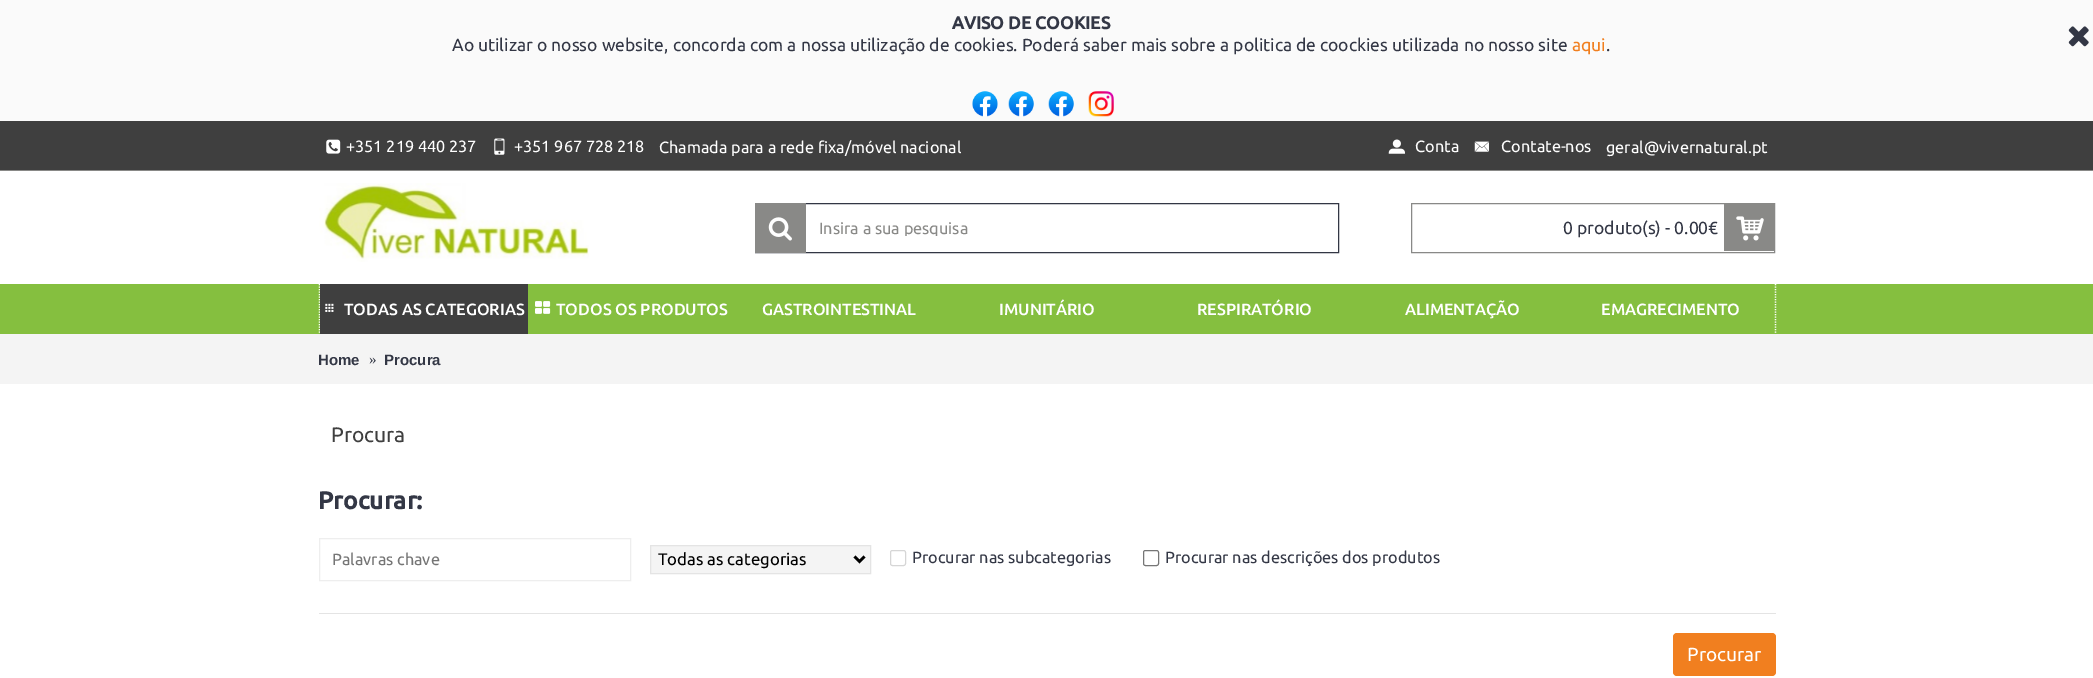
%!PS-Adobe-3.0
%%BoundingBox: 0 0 2093 678
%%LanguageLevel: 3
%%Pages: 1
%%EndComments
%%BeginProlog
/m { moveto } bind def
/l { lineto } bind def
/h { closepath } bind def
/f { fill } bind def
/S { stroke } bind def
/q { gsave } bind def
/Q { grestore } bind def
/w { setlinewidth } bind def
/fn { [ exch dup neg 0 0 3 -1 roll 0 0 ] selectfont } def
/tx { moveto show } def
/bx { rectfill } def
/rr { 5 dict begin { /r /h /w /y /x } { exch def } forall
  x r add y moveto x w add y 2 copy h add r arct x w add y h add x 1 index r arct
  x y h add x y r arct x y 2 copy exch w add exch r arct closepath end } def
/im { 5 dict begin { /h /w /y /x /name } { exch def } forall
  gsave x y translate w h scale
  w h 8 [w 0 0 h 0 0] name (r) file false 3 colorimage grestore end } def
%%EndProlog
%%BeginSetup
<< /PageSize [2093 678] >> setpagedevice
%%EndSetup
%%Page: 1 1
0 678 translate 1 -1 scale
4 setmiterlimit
0.98 setgray
0 0 2093 678 bx
/Ubuntu-Bold 17.5 fn
0.2 0.216 0.271 setrgbcolor
(AVISO DE COOKIES) 952 29 tx
/Ubuntu-Regular 17.5 fn
(Ao utilizar o nosso website, concorda com a nossa utilização de cookies. Poderá saber mais sobre a politica de coockies utilizada no nosso site) 452 51 tx
0.945 0.498 0.122 setrgbcolor
(aqui) 1572 51 tx
0.2 0.216 0.271 setrgbcolor
(.) 1606 51 tx
(image0.raw) 2068 26 21 21 im
(image1.raw) 972 91 26 26 im
(image2.raw) 1008 91 26 26 im
(image2.raw) 1048 91 26 26 im
(image3.raw) 1088 91 26 26 im
1 setgray
0 171 2093 113 bx
0.247 setgray
0 121 2093 49 bx
0.537 0.537 0.529 setrgbcolor
0 170 2093 1 bx
(image4.raw) 326 139 15 15 im
/Ubuntu-Regular 16.25 fn
1 setgray
(+351 219 440 237) 346 152 tx
(image5.raw) 494 138 11 17 im
(+351 967 728 218) 514 152 tx
(Chamada para a rede fixa/móvel nacional) 659 153 tx
(image6.raw) 1388 139 17 15 im
(Conta) 1415 152 tx
(image7.raw) 1474 141 15 11 im
(Contate-nos) 1501 152 tx
(geral@vivernatural.pt) 1606 153 tx
(image8.raw) 319 183 270 79 im
0.2 0.216 0.271 setrgbcolor
755.5 203.5 583 49 rectstroke
0.537 0.537 0.529 setrgbcolor
755 203 51 50 bx
(image9.raw) 768 217 24 24 im
q
819 219 519 17 rectclip
(Insira a sua pesquisa) 819 234 tx
Q
1411.5 203.5 363 49 rectstroke
/Ubuntu-Regular 17.5 fn
0.2 0.216 0.271 setrgbcolor
(0 produto\(s\) - 0.00€) 1563 234 tx
0.537 0.537 0.529 setrgbcolor
1724 204 50 47 bx
(image10.raw) 1736 216 28 25 im
0.522 0.749 0.247 setrgbcolor
0 284 2093 50 bx
1 setgray
1.2 w
[1.25 1.25] 0 setdash
1775.5 284 m 1775.5 334 l S
319.5 284 m 319.5 334 l S
0.247 setgray
320 284 208 50 bx
(image11.raw) 325 303 9 9 im
/Ubuntu-Medium 16.25 fn
1 setgray
(TODAS AS CATEGORIAS) 344 315 tx
(image12.raw) 535 301 16 13 im
(TODOS OS PRODUTOS) 556 315 tx
(GASTROINTESTINAL) 762 315 tx
(IMUNITÁRIO) 999 315 tx
(RESPIRATÓRIO) 1197 315 tx
(ALIMENTAÇÃO) 1405 315 tx
(EMAGRECIMENTO) 1601 315 tx
0 384 2093 294 bx
0.957 setgray
0 334 2093 50 bx
/LiberationSans-Bold 15 fn
0.2 0.216 0.271 setrgbcolor
(Home) 318 365 tx
/LiberationSerif-Regular 15 fn
(») 369 364 tx
/LiberationSans-Bold 15 fn
(Procura) 384 365 tx
/Ubuntu-Regular 21 fn
0.247 setgray
(Procura) 331 442 tx
/Ubuntu-Bold 24.5 fn
0.2 0.216 0.271 setrgbcolor
(Procurar:) 318 509 tx
0.933 setgray
1 w
[] 0 setdash
319.5 538.5 311 42 rectstroke
/Ubuntu-Regular 16.25 fn
0.459 setgray
(Palavras chave) 332 565 tx
0.957 setgray
650.5 545.5 m 870.5 545.5 l 870.5 573.5 l 650.5 573.5 l h q f Q
0.894 setgray
S
0 setgray
2.5 w
854.5 556.5 m 859.5 561.5 l 864.5 556.5 l S
/Ubuntu-Regular 16.75 fn
(Todas as categorias) 658 565 tx
0.839 setgray
1 w
890.5 550.5 15 15 2 rr S
/Ubuntu-Regular 16.25 fn
0.2 0.216 0.271 setrgbcolor
(Procurar nas subcategorias) 912 563 tx
0.463 setgray
1143.5 550.5 15 15 2 rr S
0.2 0.216 0.271 setrgbcolor
(Procurar nas descrições dos produtos) 1165 563 tx
0.894 setgray
319 613 1457 1 bx
0.945 0.498 0.122 setrgbcolor
1673 633 103 43 4 rr f
/Ubuntu-Regular 19 fn
1 setgray
(Procurar) 1687 661 tx
showpage
%%EOF
